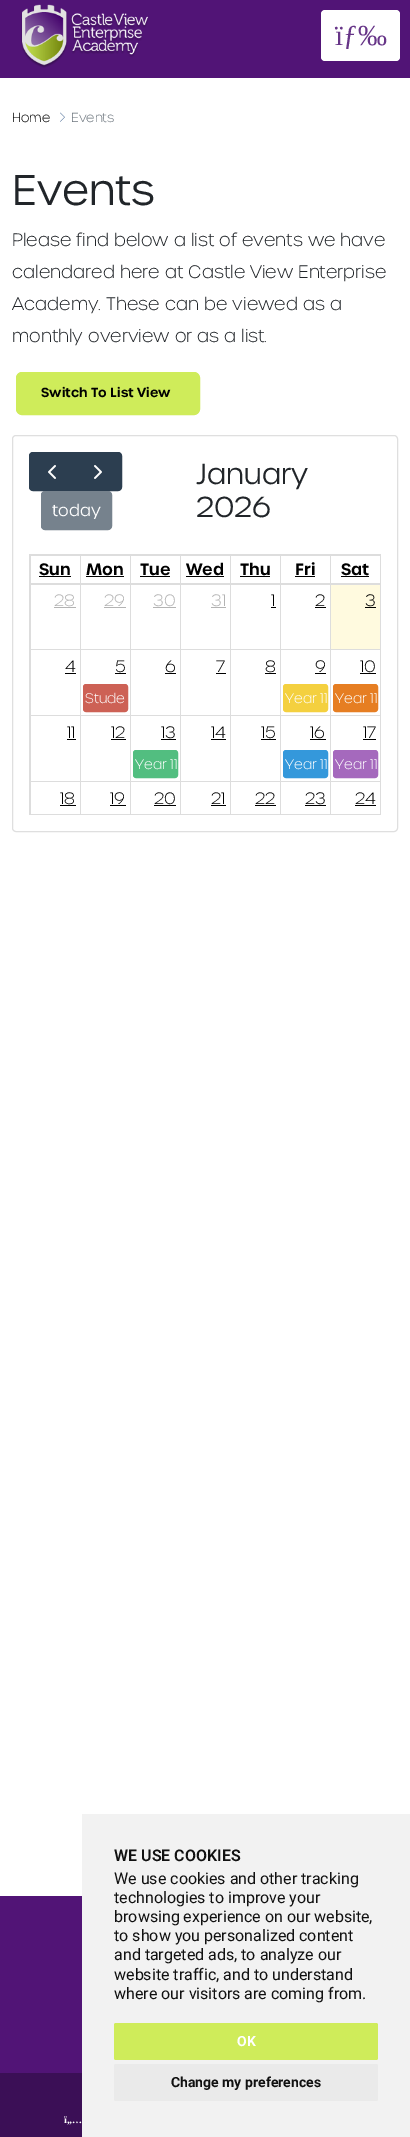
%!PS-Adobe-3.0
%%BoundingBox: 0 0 410 2137
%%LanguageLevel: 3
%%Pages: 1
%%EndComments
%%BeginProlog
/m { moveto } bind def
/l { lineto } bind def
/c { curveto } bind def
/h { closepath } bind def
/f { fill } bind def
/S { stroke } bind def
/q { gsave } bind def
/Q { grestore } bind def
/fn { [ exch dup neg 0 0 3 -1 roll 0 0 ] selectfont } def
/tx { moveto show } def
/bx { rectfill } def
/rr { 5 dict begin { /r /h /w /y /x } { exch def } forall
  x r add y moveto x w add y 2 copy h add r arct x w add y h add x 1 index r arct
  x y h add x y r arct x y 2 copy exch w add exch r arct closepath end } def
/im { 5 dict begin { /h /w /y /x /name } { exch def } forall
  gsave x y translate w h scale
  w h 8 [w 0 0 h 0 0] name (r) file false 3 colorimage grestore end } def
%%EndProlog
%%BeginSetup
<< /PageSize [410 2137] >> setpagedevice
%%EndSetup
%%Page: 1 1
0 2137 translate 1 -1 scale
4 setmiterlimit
1 setgray
0 0 410 2137 bx
0.318 0.078 0.463 setrgbcolor
0 0 410 78 bx
(image0.raw) 21 4 128 64 im
1 setgray
321 10 79 51 4 rr f
/LiberationSerif-Regular 29 fn
0.404 0.208 0.533 setrgbcolor
(ïƒ‰) 335 45 tx
/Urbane-ExtraLight 12.75 fn
0 setgray
(Home) 12 122 tx
(image1.raw) 60 112 5 10 im
0.424 0.459 0.49 setrgbcolor
(Events) 71 122 tx
/Urbane-Light 41.5 fn
0.129 0.145 0.161 setrgbcolor
(Events) 12 205 tx
/Urbane-ExtraLight 17.6 fn
(Please find below a list of events we have) 12 246 tx
(calendared here at Castle View Enterprise) 12 278 tx
(Academy. These can be viewed as a) 12 310 tx
(monthly overview or as a list.) 12 342 tx
0.812 0.925 0.353 setrgbcolor
16.5 372.5 183 42 5.5 rr q f Q
S
/Urbane-SemiBold 12.75 fn
0 setgray
(Switch To List View) 41 397 tx
0.875 setgray
12.5 435.5 385 396 3.5 rr S
0.173 0.243 0.314 setrgbcolor
33 452.5 m 75.5 452.5 l 75.5 490.5 l 33 490.5 l 31 490.5 29.5 489 29.5 487 c 29.5 456 l 29.5 454 31 452.5 33 452.5 c h q f Q
S
(image2.raw) 48 465 8 14 im
75.5 452.5 m 118 452.5 l 120 452.5 121.5 454 121.5 456 c 121.5 487 l 121.5 489 120 490.5 118 490.5 c 75.5 490.5 l h q f Q
S
(image3.raw) 94 465 8 14 im
0.463 0.51 0.553 setrgbcolor
41.5 491.5 70 38 3.5 rr q f Q
S
/Urbane-Light 16 fn
1 setgray
(today) 52 516 tx
/Urbane-Light 28 fn
0.129 0.145 0.161 setrgbcolor
(January) 196 484 tx
(2026) 196 517 tx
0.867 setgray
29 554 352 1 bx
29 554 1 261 bx
380 555 1 260 bx
330 555 50 1 bx
330 583 50 2 bx
330 555 1 29 bx
280 555 51 1 bx
280 583 51 1 bx
280 555 1 29 bx
230 555 51 1 bx
230 583 51 1 bx
230 555 1 29 bx
180 555 51 1 bx
180 583 51 1 bx
180 555 1 29 bx
130 555 51 1 bx
130 583 51 1 bx
130 555 1 29 bx
80 555 51 1 bx
80 583 51 1 bx
80 555 1 29 bx
30 555 51 1 bx
30 583 51 1 bx
30 555 1 29 bx
/Urbane-SemiBold 16 fn
0 setgray
(Sun) 39 575 tx
39 576 32 1 bx
(Mon) 86 575 tx
86 576 38 1 bx
(Tue) 140 575 tx
140 576 30 1 bx
(Wed) 186 575 tx
186 576 38 1 bx
(Thu) 240 575 tx
240 576 30 1 bx
(Fri) 295 575 tx
295 576 20 1 bx
(Sat) 341 575 tx
341 576 28 1 bx
0.867 setgray
30 814 351 1 bx
330 649 50 1 bx
330 715 50 1 bx
330 781 50 1 bx
330 781 1 33 bx
280 781 51 1 bx
330 715 1 67 bx
280 715 51 1 bx
330 649 1 67 bx
280 649 51 1 bx
330 584 1 66 bx
280 584 51 1 bx
280 781 1 33 bx
230 781 51 1 bx
280 715 1 67 bx
230 715 51 1 bx
280 649 1 67 bx
230 649 51 1 bx
280 584 1 66 bx
230 584 51 1 bx
230 781 1 33 bx
180 781 51 1 bx
230 715 1 67 bx
180 715 51 1 bx
230 649 1 67 bx
180 649 51 1 bx
230 584 1 66 bx
180 584 51 1 bx
180 781 1 33 bx
130 781 51 1 bx
180 715 1 67 bx
130 715 51 1 bx
180 649 1 67 bx
130 649 51 1 bx
180 584 1 66 bx
130 584 51 1 bx
130 781 1 33 bx
80 781 51 1 bx
130 715 1 67 bx
80 715 51 1 bx
130 649 1 67 bx
80 649 51 1 bx
130 584 1 66 bx
80 584 51 1 bx
80 781 1 33 bx
30 781 51 1 bx
80 715 1 67 bx
30 715 51 1 bx
80 649 1 67 bx
30 649 51 1 bx
80 584 1 66 bx
30 584 51 1 bx
30 781 1 33 bx
30 715 1 67 bx
30 649 1 67 bx
30 584 1 66 bx
/Urbane-ExtraLight 16 fn
0.702 setgray
(28) 54 606 tx
54 607 22 1 bx
(29) 104 606 tx
104 607 22 1 bx
(30) 153 606 tx
153 607 23 1 bx
(31) 211 606 tx
211 607 15 1 bx
0 setgray
(1) 271 606 tx
271 607 5 1 bx
(2) 315 606 tx
315 607 11 1 bx
1 0.98 0.875 setrgbcolor
331 585 49 64 bx
0 setgray
(3) 365 606 tx
365 607 11 1 bx
(4) 65 672 tx
65 673 11 1 bx
(5) 115 672 tx
115 673 11 1 bx
0.804 0.38 0.333 setrgbcolor
83.5 684.5 44 27 2.5 rr q f Q
S
/Urbane-ExtraLight 13.5 fn
1 setgray
(Stude) 85 703 tx
/Urbane-ExtraLight 16 fn
0 setgray
(6) 165 672 tx
165 673 11 1 bx
(7) 216 672 tx
216 673 10 1 bx
(8) 265 672 tx
265 673 11 1 bx
(9) 315 672 tx
315 673 11 1 bx
0.957 0.816 0.247 setrgbcolor
283.5 684.5 44 27 2.5 rr q f Q
S
/Urbane-ExtraLight 13.5 fn
1 setgray
(Year 11) 285 703 tx
/Urbane-ExtraLight 16 fn
0 setgray
(10) 360 672 tx
360 673 16 1 bx
0.902 0.494 0.133 setrgbcolor
333.5 684.5 44 27 2.5 rr q f Q
S
/Urbane-ExtraLight 13.5 fn
1 setgray
(Year 11) 335 703 tx
/Urbane-ExtraLight 16 fn
0 setgray
(11) 67 738 tx
67 739 9 1 bx
(12) 111 738 tx
111 739 15 1 bx
(13) 161 738 tx
161 739 15 1 bx
0.322 0.745 0.502 setrgbcolor
133.5 750.5 44 27 2.5 rr q f Q
S
/Urbane-ExtraLight 13.5 fn
1 setgray
(Year 11) 135 769 tx
/Urbane-ExtraLight 16 fn
0 setgray
(14) 211 738 tx
211 739 15 1 bx
(15) 261 738 tx
261 739 15 1 bx
(16) 310 738 tx
310 739 16 1 bx
0.204 0.596 0.859 setrgbcolor
283.5 750.5 44 27 2.5 rr q f Q
S
/Urbane-ExtraLight 13.5 fn
1 setgray
(Year 11) 285 769 tx
/Urbane-ExtraLight 16 fn
0 setgray
(17) 363 738 tx
363 739 13 1 bx
0.647 0.412 0.741 setrgbcolor
333.5 750.5 44 27 2.5 rr q f Q
S
/Urbane-ExtraLight 13.5 fn
1 setgray
(Year 11) 335 769 tx
/Urbane-ExtraLight 16 fn
0 setgray
(18) 60 804 tx
60 805 16 1 bx
(19) 110 804 tx
110 805 16 1 bx
(20) 154 804 tx
154 805 22 1 bx
(21) 211 804 tx
211 805 15 1 bx
(22) 255 804 tx
255 805 21 1 bx
(23) 305 804 tx
305 805 21 1 bx
(24) 355 804 tx
355 805 21 1 bx
0.949 setgray
82 1814 328 323 bx
/Roboto-SemiBold 16 fn
0.067 setgray
(WE USE COOKIES) 114 1861 tx
/Roboto-Regular 16 fn
(We use cookies and other tracking) 114 1884 tx
(technologies to improve your) 114 1903 tx
(browsing experience on our website,) 114 1922 tx
(to show you personalized content) 114 1941 tx
(and targeted ads, to analyze our) 114 1960 tx
(website traffic, and to understand) 114 1980 tx
(where our visitors are coming from.) 114 1999 tx
0.812 0.925 0.353 setrgbcolor
114 2023 264 37 2 rr f
/Roboto-Bold 14 fn
1 setgray
(OK) 237 2046 tx
0.918 setgray
114 2064 264 37 2 rr f
0.067 setgray
(Change my preferences) 171 2087 tx
0.318 0.078 0.463 setrgbcolor
0 1896 82 177 bx
0.231 0.059 0.337 setrgbcolor
0 2073 82 64 bx
/LiberationSerif-Bold 10 fn
1 setgray
(ï„…) 64 2123 tx
showpage
%%EOF
